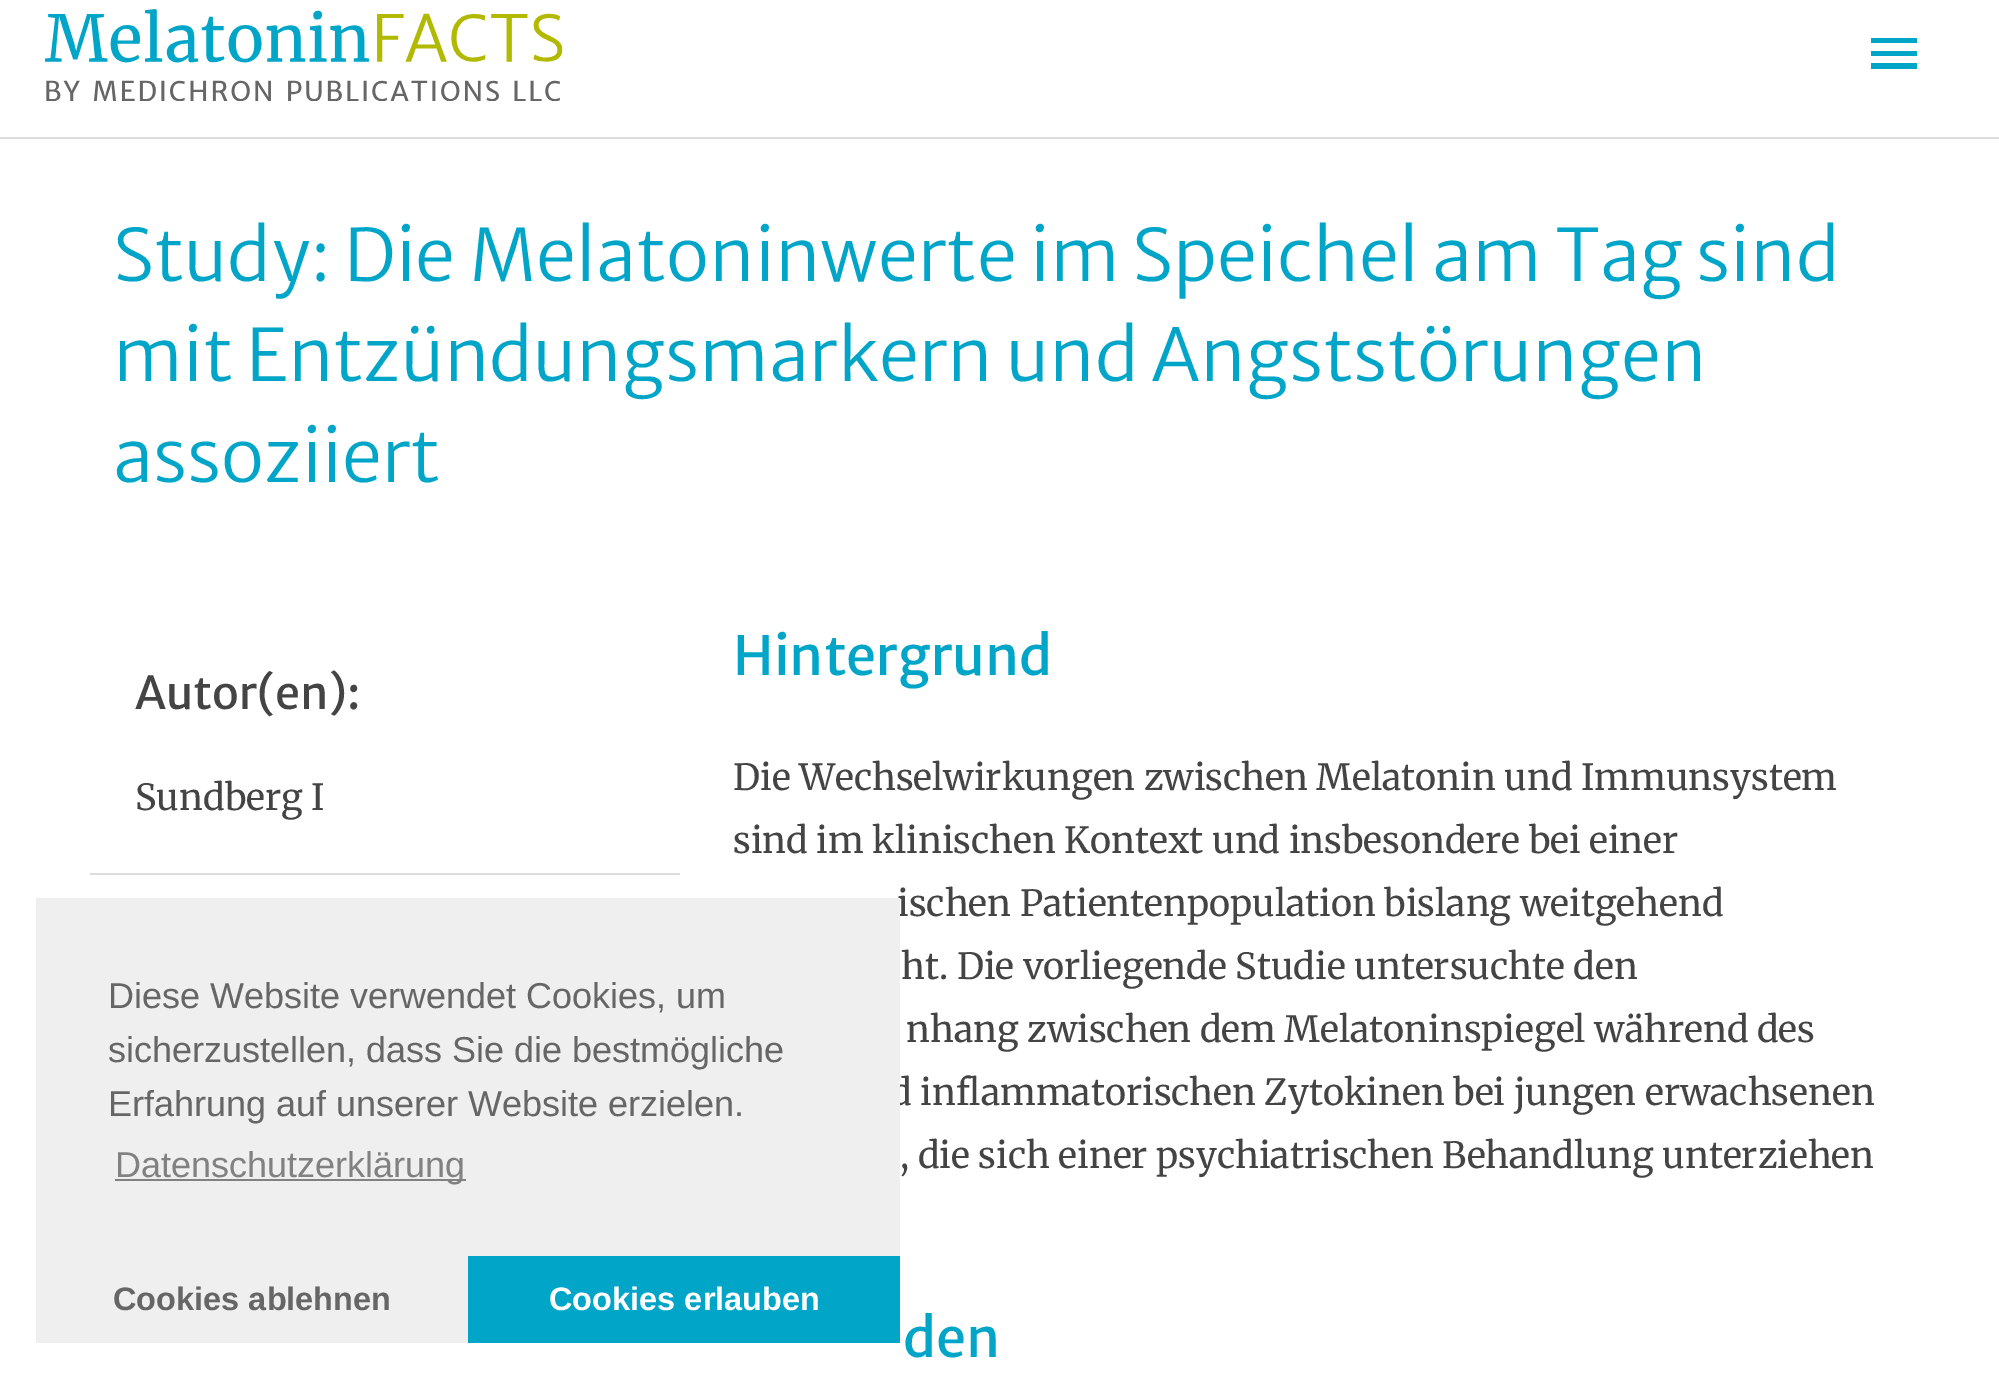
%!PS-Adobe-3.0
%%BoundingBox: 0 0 1999 1379
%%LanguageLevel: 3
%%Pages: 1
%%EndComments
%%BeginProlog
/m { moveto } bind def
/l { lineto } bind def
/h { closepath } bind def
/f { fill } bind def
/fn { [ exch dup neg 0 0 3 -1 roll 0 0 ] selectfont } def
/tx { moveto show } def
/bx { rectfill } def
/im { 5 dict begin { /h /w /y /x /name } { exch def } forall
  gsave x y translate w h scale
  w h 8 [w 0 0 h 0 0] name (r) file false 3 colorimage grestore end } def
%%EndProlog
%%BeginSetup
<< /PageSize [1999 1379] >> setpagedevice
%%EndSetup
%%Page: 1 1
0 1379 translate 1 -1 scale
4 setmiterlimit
1 setgray
0 0 1999 1379 bx
0.867 setgray
0 137 1999 2 bx
(image0.raw) 45 9 518 92 im
0 0.647 0.784 setrgbcolor
1871 38 m 1917 38 l 1917 43 l 1871 43 l h 1871 56 m 1871 51 l 1917 51 l 1917 56 l h 1871 69 m 1871 63 l 1917 63 l 1917 69 l h f
/MerriweatherSans-Light 72 fn
(Study: Die Melatoninwerte im Speichel am Tag sind) 113 281 tx
(mit Entzündungsmarkern und Angststörungen) 113 381 tx
(assoziiert) 113 482 tx
0.867 setgray
90 873 590 2 bx
/MerriweatherSans-Regular 45 fn
0.267 setgray
(Autor\(en\):) 135 709 tx
/Merriweather-Regular 36 fn
(Sundberg I) 135 810 tx
/MerriweatherSans-Regular 54 fn
0 0.647 0.784 setrgbcolor
(Hintergrund) 733 675 tx
/Merriweather-Regular 36 fn
0.267 setgray
(Die Wechselwirkungen zwischen Melatonin und Immunsystem) 733 790 tx
(sind im klinischen Kontext und insbesondere bei einer) 733 853 tx
(ischen Patientenpopulation bislang weitgehend) 897 916 tx
(ht. Die vorliegende Studie untersuchte den) 901 979 tx
(nhang zwischen dem Melatoninspiegel während des) 906 1042 tx
(d inflammatorischen Zytokinen bei jungen erwachsenen) 890 1105 tx
(, die sich einer psychiatrischen Behandlung unterziehen) 900 1168 tx
/MerriweatherSans-Regular 54 fn
0 0.647 0.784 setrgbcolor
(den) 903 1357 tx
0.937 setgray
36 898 864 445 bx
/LiberationSans-Regular 36 fn
0.4 setgray
(Diese Website verwendet Cookies, um) 108 1008 tx
(sicherzustellen, dass Sie die bestmögliche) 108 1062 tx
(Erfahrung auf unserer Website erzielen.) 108 1116 tx
0.506 setgray
115 1179 351 2 bx
(Datenschutzerklärung) 115 1177 tx
/LiberationSans-Bold 32.5 fn
0.4 setgray
(Cookies ablehnen) 113 1310 tx
0 0.647 0.784 setrgbcolor
468 1256 432 87 bx
1 setgray
(Cookies erlauben) 549 1310 tx
showpage
%%EOF
